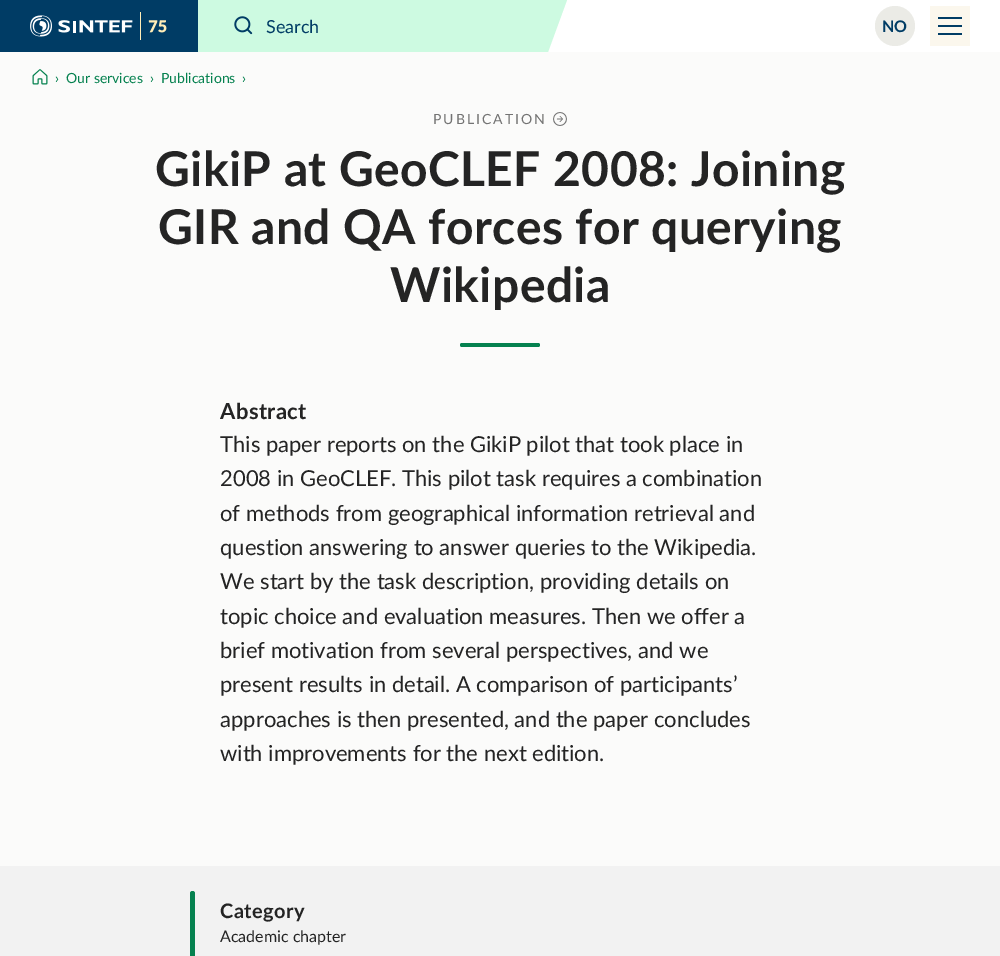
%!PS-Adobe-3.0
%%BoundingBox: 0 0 1000 956
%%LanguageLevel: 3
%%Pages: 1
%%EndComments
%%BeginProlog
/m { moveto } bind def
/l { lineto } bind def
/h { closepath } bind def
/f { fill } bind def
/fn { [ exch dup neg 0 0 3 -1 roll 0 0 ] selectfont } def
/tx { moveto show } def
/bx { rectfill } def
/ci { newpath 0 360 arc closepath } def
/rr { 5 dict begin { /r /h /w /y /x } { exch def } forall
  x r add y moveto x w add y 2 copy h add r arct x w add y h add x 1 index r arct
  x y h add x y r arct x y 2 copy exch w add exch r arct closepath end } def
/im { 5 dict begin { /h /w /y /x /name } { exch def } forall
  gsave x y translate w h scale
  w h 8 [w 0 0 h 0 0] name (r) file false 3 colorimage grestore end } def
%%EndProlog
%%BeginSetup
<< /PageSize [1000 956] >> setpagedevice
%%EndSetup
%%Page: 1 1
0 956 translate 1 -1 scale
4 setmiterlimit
0.984 0.984 0.98 setrgbcolor
0 0 1000 956 bx
0 0.235 0.396 setrgbcolor
0 0 198 52 bx
(image0.raw) 30 12 137 28 im
1 setgray
548 0 452 52 bx
0.804 0.98 0.882 setrgbcolor
217 0 m 567 0 l 548 52 l 198 52 l h f
(image1.raw) 234 16 19 19 im
198 0 19 52 bx
/Lato-Regular 18 fn
0 0.235 0.396 setrgbcolor
(Search) 266 33 tx
0.922 0.922 0.902 setrgbcolor
895 26 20 ci f
/Lato-Bold 16 fn
0 0.235 0.396 setrgbcolor
(NO) 882 32 tx
0.984 0.969 0.929 setrgbcolor
930 6 40 40 bx
0 0.235 0.396 setrgbcolor
938 17 24 2 bx
938 25 24 2 bx
938 33 24 2 bx
(image2.raw) 32 69 16 16 im
/Lato-Regular 14 fn
0.02 0.506 0.31 setrgbcolor
(›) 55 83 tx
(Our services) 66 83 tx
(›) 150 83 tx
(Publications) 161 83 tx
(›) 242 83 tx
0.451 setgray
433 124 m 2 0 (PUBLICATION) ashow
(image3.raw) 553 112 14 14 im
/Lato-Bold 48 fn
0.141 setgray
155 186 m 0.4 0 (GikiP at GeoCLEF 2008: Joining) ashow
158 244 m 0.4 0 (GIR and QA forces for querying) ashow
390 302 m 0.4 0 (Wikipedia) ashow
0.02 0.506 0.31 setrgbcolor
460 343 80 4 2 rr f
/Lato-Bold 22 fn
0.141 setgray
220 419 m 0.4 0 (Abstract) ashow
/Lato-Regular 22 fn
(This paper reports on the GikiP pilot that took place in) 220 452 tx
(2008 in GeoCLEF. This pilot task requires a combination) 220 486 tx
(of methods from geographical information retrieval and) 220 521 tx
(question answering to answer queries to the Wikipedia.) 220 555 tx
(We start by the task description, providing details on) 220 589 tx
(topic choice and evaluation measures. Then we offer a) 220 624 tx
(brief motivation from several perspectives, and we) 220 658 tx
(present results in detail. A comparison of participants’) 220 692 tx
(approaches is then presented, and the paper concludes) 220 727 tx
(with improvements for the next edition.) 220 761 tx
0.949 setgray
0 866 1000 90 bx
0.02 0.506 0.31 setrgbcolor
190 891 5 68 2.5 rr f
/Lato-Bold 20 fn
0.141 setgray
220 918 m 0.4 0 (Category) ashow
/Lato-Regular 16 fn
(Academic chapter) 220 942 tx
showpage
%%EOF
